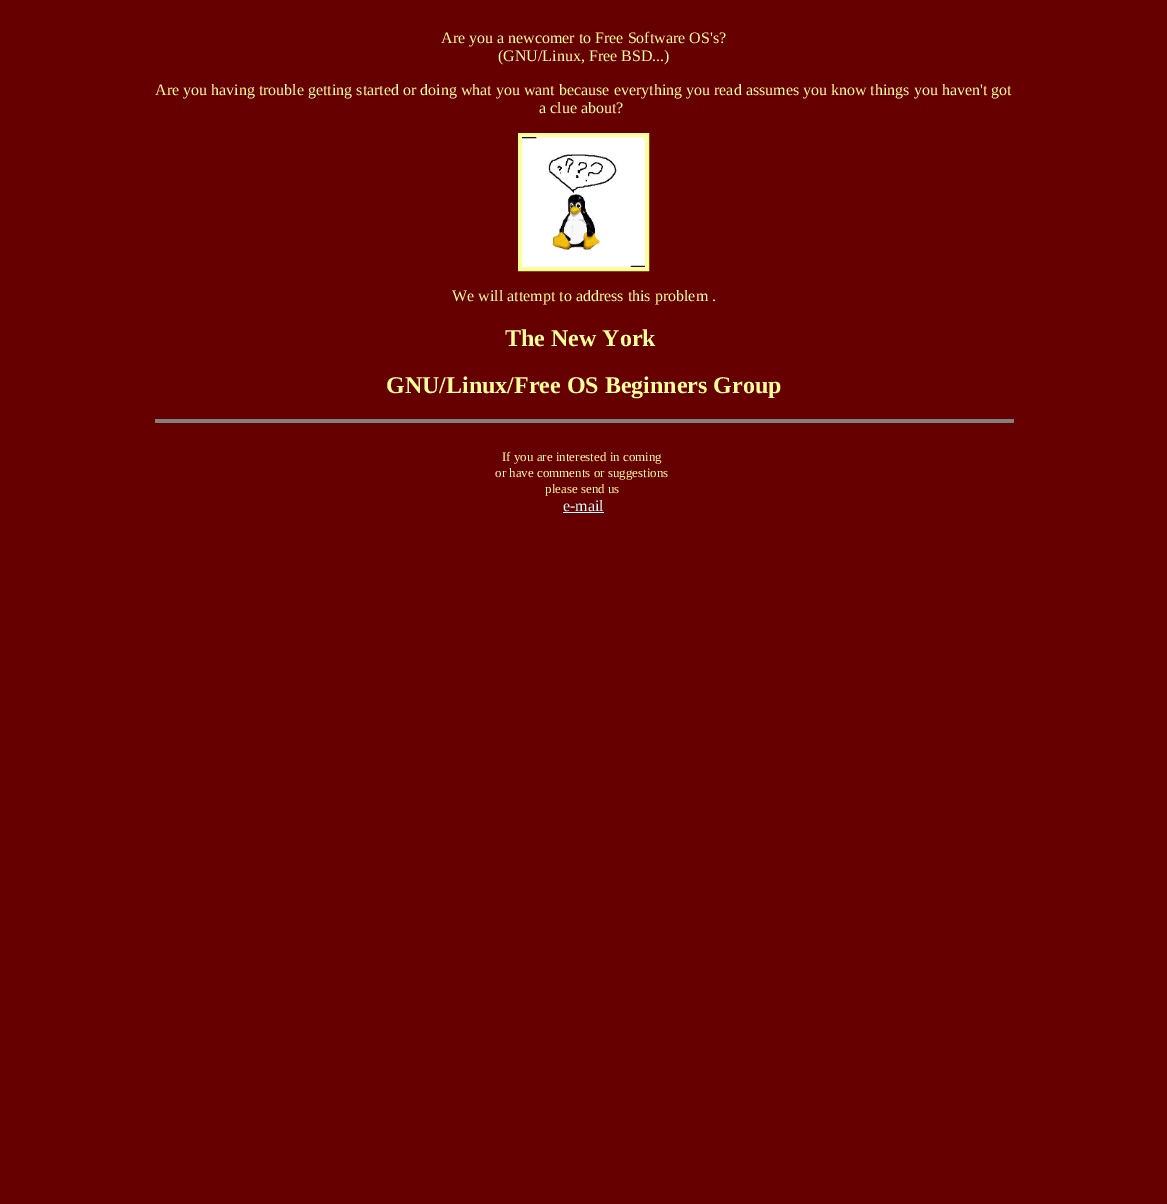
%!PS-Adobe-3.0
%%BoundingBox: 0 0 1167 1204
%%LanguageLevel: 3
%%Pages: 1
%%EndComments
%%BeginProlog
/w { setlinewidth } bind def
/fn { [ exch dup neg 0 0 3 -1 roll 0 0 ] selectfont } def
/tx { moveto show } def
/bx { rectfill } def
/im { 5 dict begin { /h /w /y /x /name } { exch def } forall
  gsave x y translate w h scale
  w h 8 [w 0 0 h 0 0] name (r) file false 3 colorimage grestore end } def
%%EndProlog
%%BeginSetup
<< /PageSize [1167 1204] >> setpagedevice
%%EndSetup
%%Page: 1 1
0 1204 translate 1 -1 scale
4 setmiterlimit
0.4 0 0 setrgbcolor
0 0 1167 1204 bx
/LiberationSerif-Regular 16 fn
1 1 0.6 setrgbcolor
(Are you a newcomer to Free Software OS's?) 441 43 tx
(\(GNU/Linux, Free BSD...\)) 498 61 tx
(Are you having trouble getting started or doing what you want because everything you read assumes you know things you haven't got) 155 95 tx
(a clue about?) 539 113 tx
4 w
520 135 127 134 rectstroke
(image0.raw) 522 137 123 130 im
(We will attempt to address this problem .) 452 301 tx
/LiberationSerif-Bold 24 fn
(The New York) 505 346 tx
(GNU/Linux/Free OS Beginners Group) 386 393 tx
0.502 setgray
155 419 859 4 bx
/LiberationSerif-Regular 13 fn
1 1 0.6 setrgbcolor
(If you are interested in coming) 502 461 tx
(or have comments or suggestions) 495 477 tx
(please send us) 545 493 tx
/LiberationSerif-Regular 16 fn
0.8 1 1 setrgbcolor
(e-mail) 563 511 tx
563 512 41 1 bx
showpage
%%EOF
